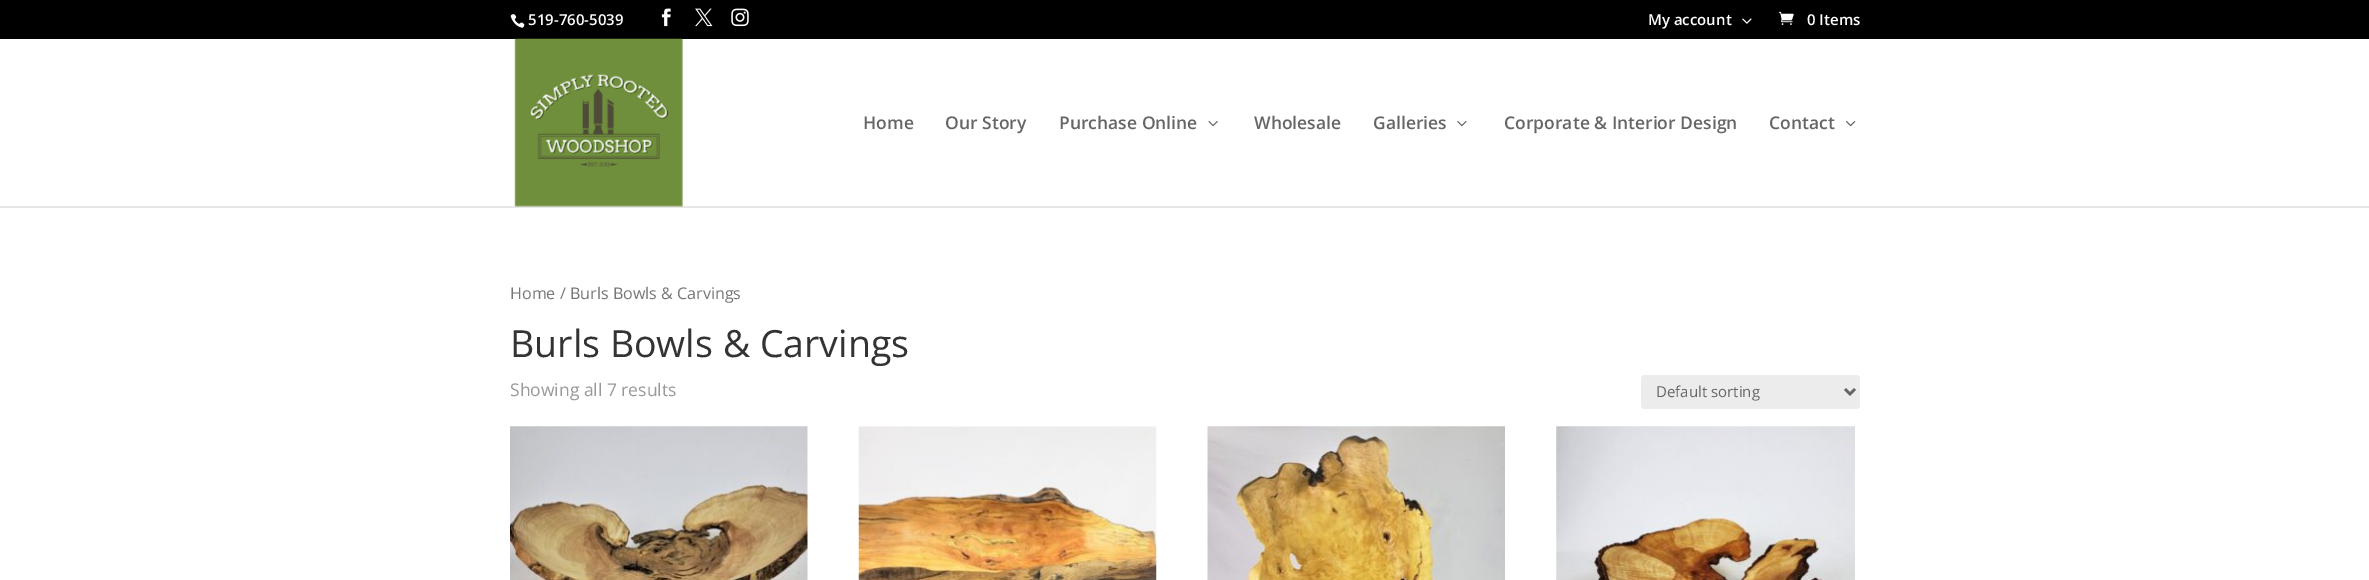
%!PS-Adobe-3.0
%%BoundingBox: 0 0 2369 580
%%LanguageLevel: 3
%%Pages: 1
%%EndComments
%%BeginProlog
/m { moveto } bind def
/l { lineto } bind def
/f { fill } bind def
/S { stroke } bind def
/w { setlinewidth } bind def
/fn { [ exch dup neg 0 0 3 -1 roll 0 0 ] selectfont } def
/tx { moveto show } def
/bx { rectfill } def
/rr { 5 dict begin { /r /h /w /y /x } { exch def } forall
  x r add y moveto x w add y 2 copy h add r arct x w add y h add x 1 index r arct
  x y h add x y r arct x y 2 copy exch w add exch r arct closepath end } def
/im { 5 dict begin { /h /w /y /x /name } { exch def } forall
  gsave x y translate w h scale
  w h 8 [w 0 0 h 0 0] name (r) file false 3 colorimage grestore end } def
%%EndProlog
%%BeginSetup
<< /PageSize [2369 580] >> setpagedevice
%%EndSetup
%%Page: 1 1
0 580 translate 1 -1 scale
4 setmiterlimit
1 setgray
0 0 2369 580 bx
0 setgray
0 0 2369 39 bx
(image0.raw) 510 14 15 14 im
/OpenSans-SemiBold 15 fn
1 setgray
(519-760-5039) 528 25 tx
(image1.raw) 661 8 10 19 im
(image2.raw) 695 8 18 19 im
(image3.raw) 731 8 18 19 im
(My account) 1648 25 tx
(image4.raw) 1742 18 10 6 im
(image5.raw) 1778 11 16 14 im
(0 Items) 1807 25 tx
0.902 setgray
0 206 2369 2 bx
(image6.raw) 514 38 169 169 im
/OpenSans-SemiBold 17.5 fn
0.4 setgray
(Home) 863 129 tx
(Our Story) 945 129 tx
(Purchase Online) 1059 129 tx
(image7.raw) 1208 121 10 6 im
(Wholesale) 1254 129 tx
(Galleries) 1373 129 tx
(image8.raw) 1457 121 10 6 im
(Corporate & Interior Design) 1504 129 tx
(Contact) 1769 129 tx
(image9.raw) 1846 121 10 6 im
/OpenSans-Regular 16.1 fn
0.463 setgray
(Home / Burls Bowls & Carvings) 510 299 tx
/OpenSans-Regular 37.5 fn
0.2 setgray
(Burls Bowls & Carvings) 510 357 tx
/OpenSans-Regular 17.5 fn
0.6 setgray
(Showing all 7 results) 510 396 tx
0.925 setgray
1641 375 219 34 4 rr f
0.4 setgray
2.5 w
1845 389 m 1850 394 l 1855 389 l S
/OpenSans-Regular 15 fn
(Default sorting) 1656 397 tx
(image10.raw) 510 426 298 154 im
(image11.raw) 858 426 299 154 im
(image12.raw) 1207 426 298 154 im
(image13.raw) 1556 426 299 154 im
showpage
%%EOF
